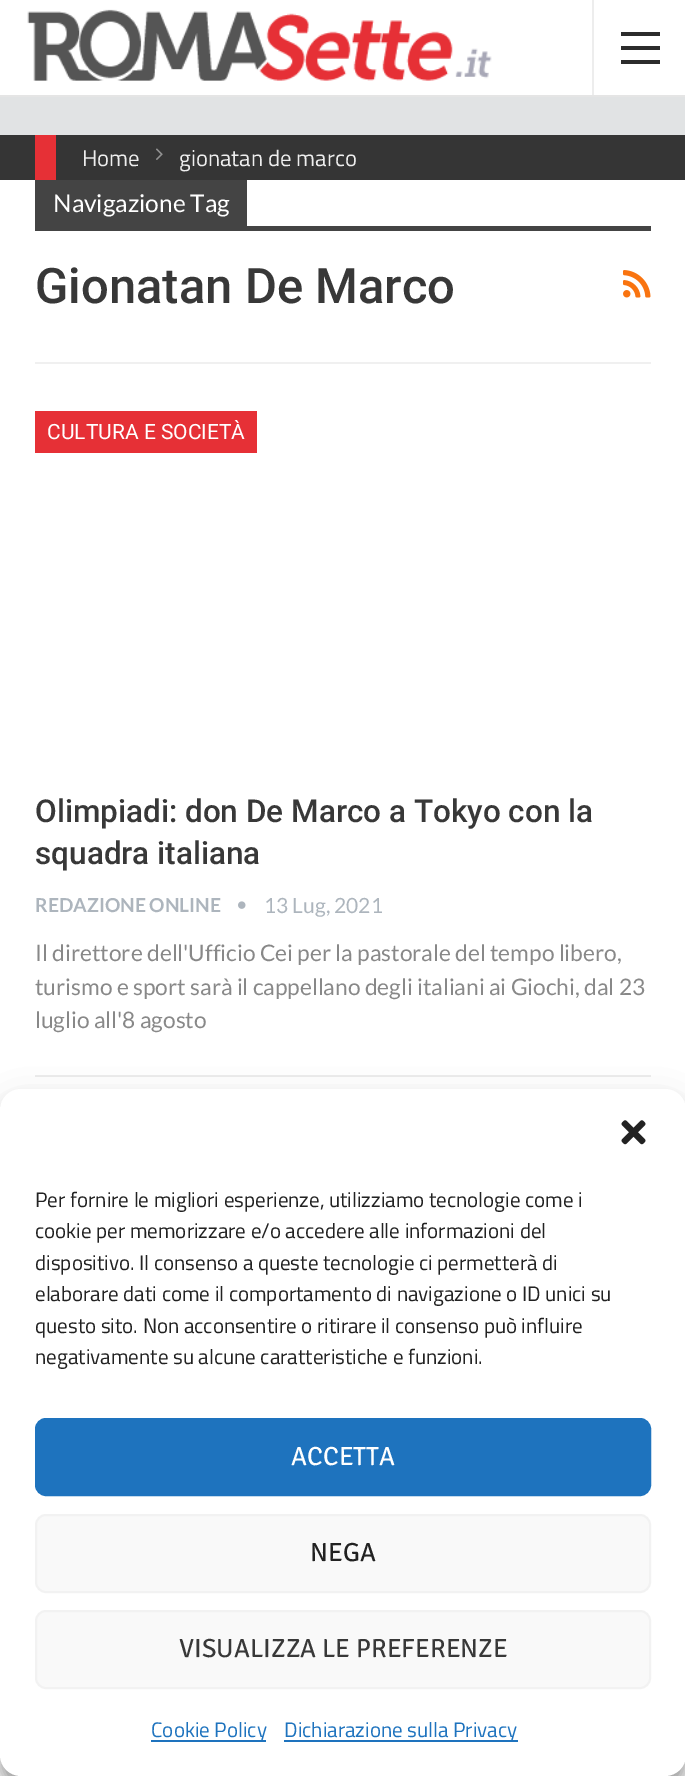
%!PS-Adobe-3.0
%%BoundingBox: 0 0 685 1776
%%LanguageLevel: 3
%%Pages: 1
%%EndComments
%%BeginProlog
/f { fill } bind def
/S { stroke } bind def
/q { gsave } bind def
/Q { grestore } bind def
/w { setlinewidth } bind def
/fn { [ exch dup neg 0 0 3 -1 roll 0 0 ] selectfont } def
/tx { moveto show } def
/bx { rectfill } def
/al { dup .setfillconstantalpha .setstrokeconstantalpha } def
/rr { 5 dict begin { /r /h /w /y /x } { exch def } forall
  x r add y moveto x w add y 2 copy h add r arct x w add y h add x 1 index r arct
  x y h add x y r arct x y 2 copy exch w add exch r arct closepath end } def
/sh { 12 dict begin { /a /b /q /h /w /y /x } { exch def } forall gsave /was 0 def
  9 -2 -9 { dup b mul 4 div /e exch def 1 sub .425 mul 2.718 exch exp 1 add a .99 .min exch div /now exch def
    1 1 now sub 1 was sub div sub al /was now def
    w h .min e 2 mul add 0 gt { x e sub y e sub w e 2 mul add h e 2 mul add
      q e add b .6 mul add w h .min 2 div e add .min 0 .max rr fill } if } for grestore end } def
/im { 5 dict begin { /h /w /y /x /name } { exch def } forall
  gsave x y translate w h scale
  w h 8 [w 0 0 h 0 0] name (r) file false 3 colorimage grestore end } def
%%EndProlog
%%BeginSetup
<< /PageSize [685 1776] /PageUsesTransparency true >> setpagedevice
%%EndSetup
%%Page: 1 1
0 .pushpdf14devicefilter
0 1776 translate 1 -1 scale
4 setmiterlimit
0.882 0.89 0.894 setrgbcolor
0 0 685 1776 bx
1 setgray
0 0 685 95 bx
0.898 setgray
0 95 685 2 bx
(image0.raw) 27 9 465 72 im
0.929 setgray
592 0 2 95 bx
0.173 setgray
621 46 39 4 bx
621 32 39 4 bx
621 60 39 4 bx
0.208 setgray
0 135 685 45 bx
0.902 0.188 0.212 setrgbcolor
35 135 21 45 bx
/TitilliumWeb-Regular 22.75 fn
0.933 setgray
(Home) 82 166 tx
(image1.raw) 156 148 7 12 im
(gionatan de marco) 179 166 tx
1 setgray
0 180 685 1596 bx
0.941 setgray
35 362 616 2 bx
0.267 setgray
35 180 212 46 bx
/Lato-Regular 24.5 fn
1 setgray
(Navigazione Tag) 53 212 tx
0.267 setgray
35 226 616 5 bx
/Roboto-Medium 49 fn
0.22 setgray
(Gionatan De Marco) 35 303 tx
(image2.raw) 623 270 28 28 im
0.902 0.188 0.212 setrgbcolor
35 411 222 42 bx
/Roboto-Regular 21 fn
1 setgray
(CULTURA E SOCIETÀ) 47 439 tx
/Roboto-Medium 31.5 fn
0.22 setgray
(Olimpiadi: don De Marco a Tokyo con la) 35 822 tx
(squadra italiana) 35 864 tx
/Lato-Bold 19.25 fn
0.678 0.71 0.741 setrgbcolor
(REDAZIONE ONLINE) 35 912 tx
(image3.raw) 238 901 8 8 im
/Lato-Regular 21 fn
(13 Lug, 2021) 264 913 tx
0.929 setgray
35 1075 616 2 bx
/Lato-Regular 22.75 fn
0.533 setgray
(Il direttore dell'Ufficio Cei per la pastorale del tempo libero,) 35 961 tx
(turismo e sport sarà il cappellano degli italiani ai Giochi, dal 23) 35 995 tx
(luglio all'8 agosto) 35 1028 tx
0 setgray
0 1099 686 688 21 5 0.23 sh
0 1106 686 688 21 17.5 0.19 sh
1 setgray
0 1089 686 687 21 rr f
(image4.raw) 621 1120 25 25 im
/TitilliumWeb-Regular 21 fn
0.133 setgray
(Per fornire le migliori esperienze, utilizziamo tecnologie come i) 35 1207 tx
(cookie per memorizzare e/o accedere alle informazioni del) 35 1238 tx
(dispositivo. Il consenso a queste tecnologie ci permetterà di) 35 1270 tx
(elaborare dati come il comportamento di navigazione o ID unici su) 35 1301 tx
(questo sito. Non acconsentire o ritirare il consenso può influire) 35 1333 tx
(negativamente su alcune caratteristiche e funzioni.) 35 1364 tx
0.118 0.451 0.745 setrgbcolor
36 1419 614 76 10 rr q f Q
2 w
S
/SignikaNegative-Light 26.25 fn
1 setgray
(ACCETTA) 291 1465 tx
0.976 setgray
36 1515 614 77 10 rr q f Q
0.949 setgray
S
0.133 setgray
(NEGA) 310 1561 tx
0.976 setgray
36 1611 614 77 10 rr q f Q
0.949 setgray
S
0.22 setgray
(VISUALIZZA LE PREFERENZE) 179 1657 tx
0.118 0.451 0.745 setrgbcolor
151 1740 115 2 bx
/TitilliumWeb-Regular 21 fn
(Cookie Policy) 151 1737 tx
284 1740 234 2 bx
(Dichiarazione sulla Privacy) 284 1737 tx
.poppdf14devicefilter showpage
%%EOF
